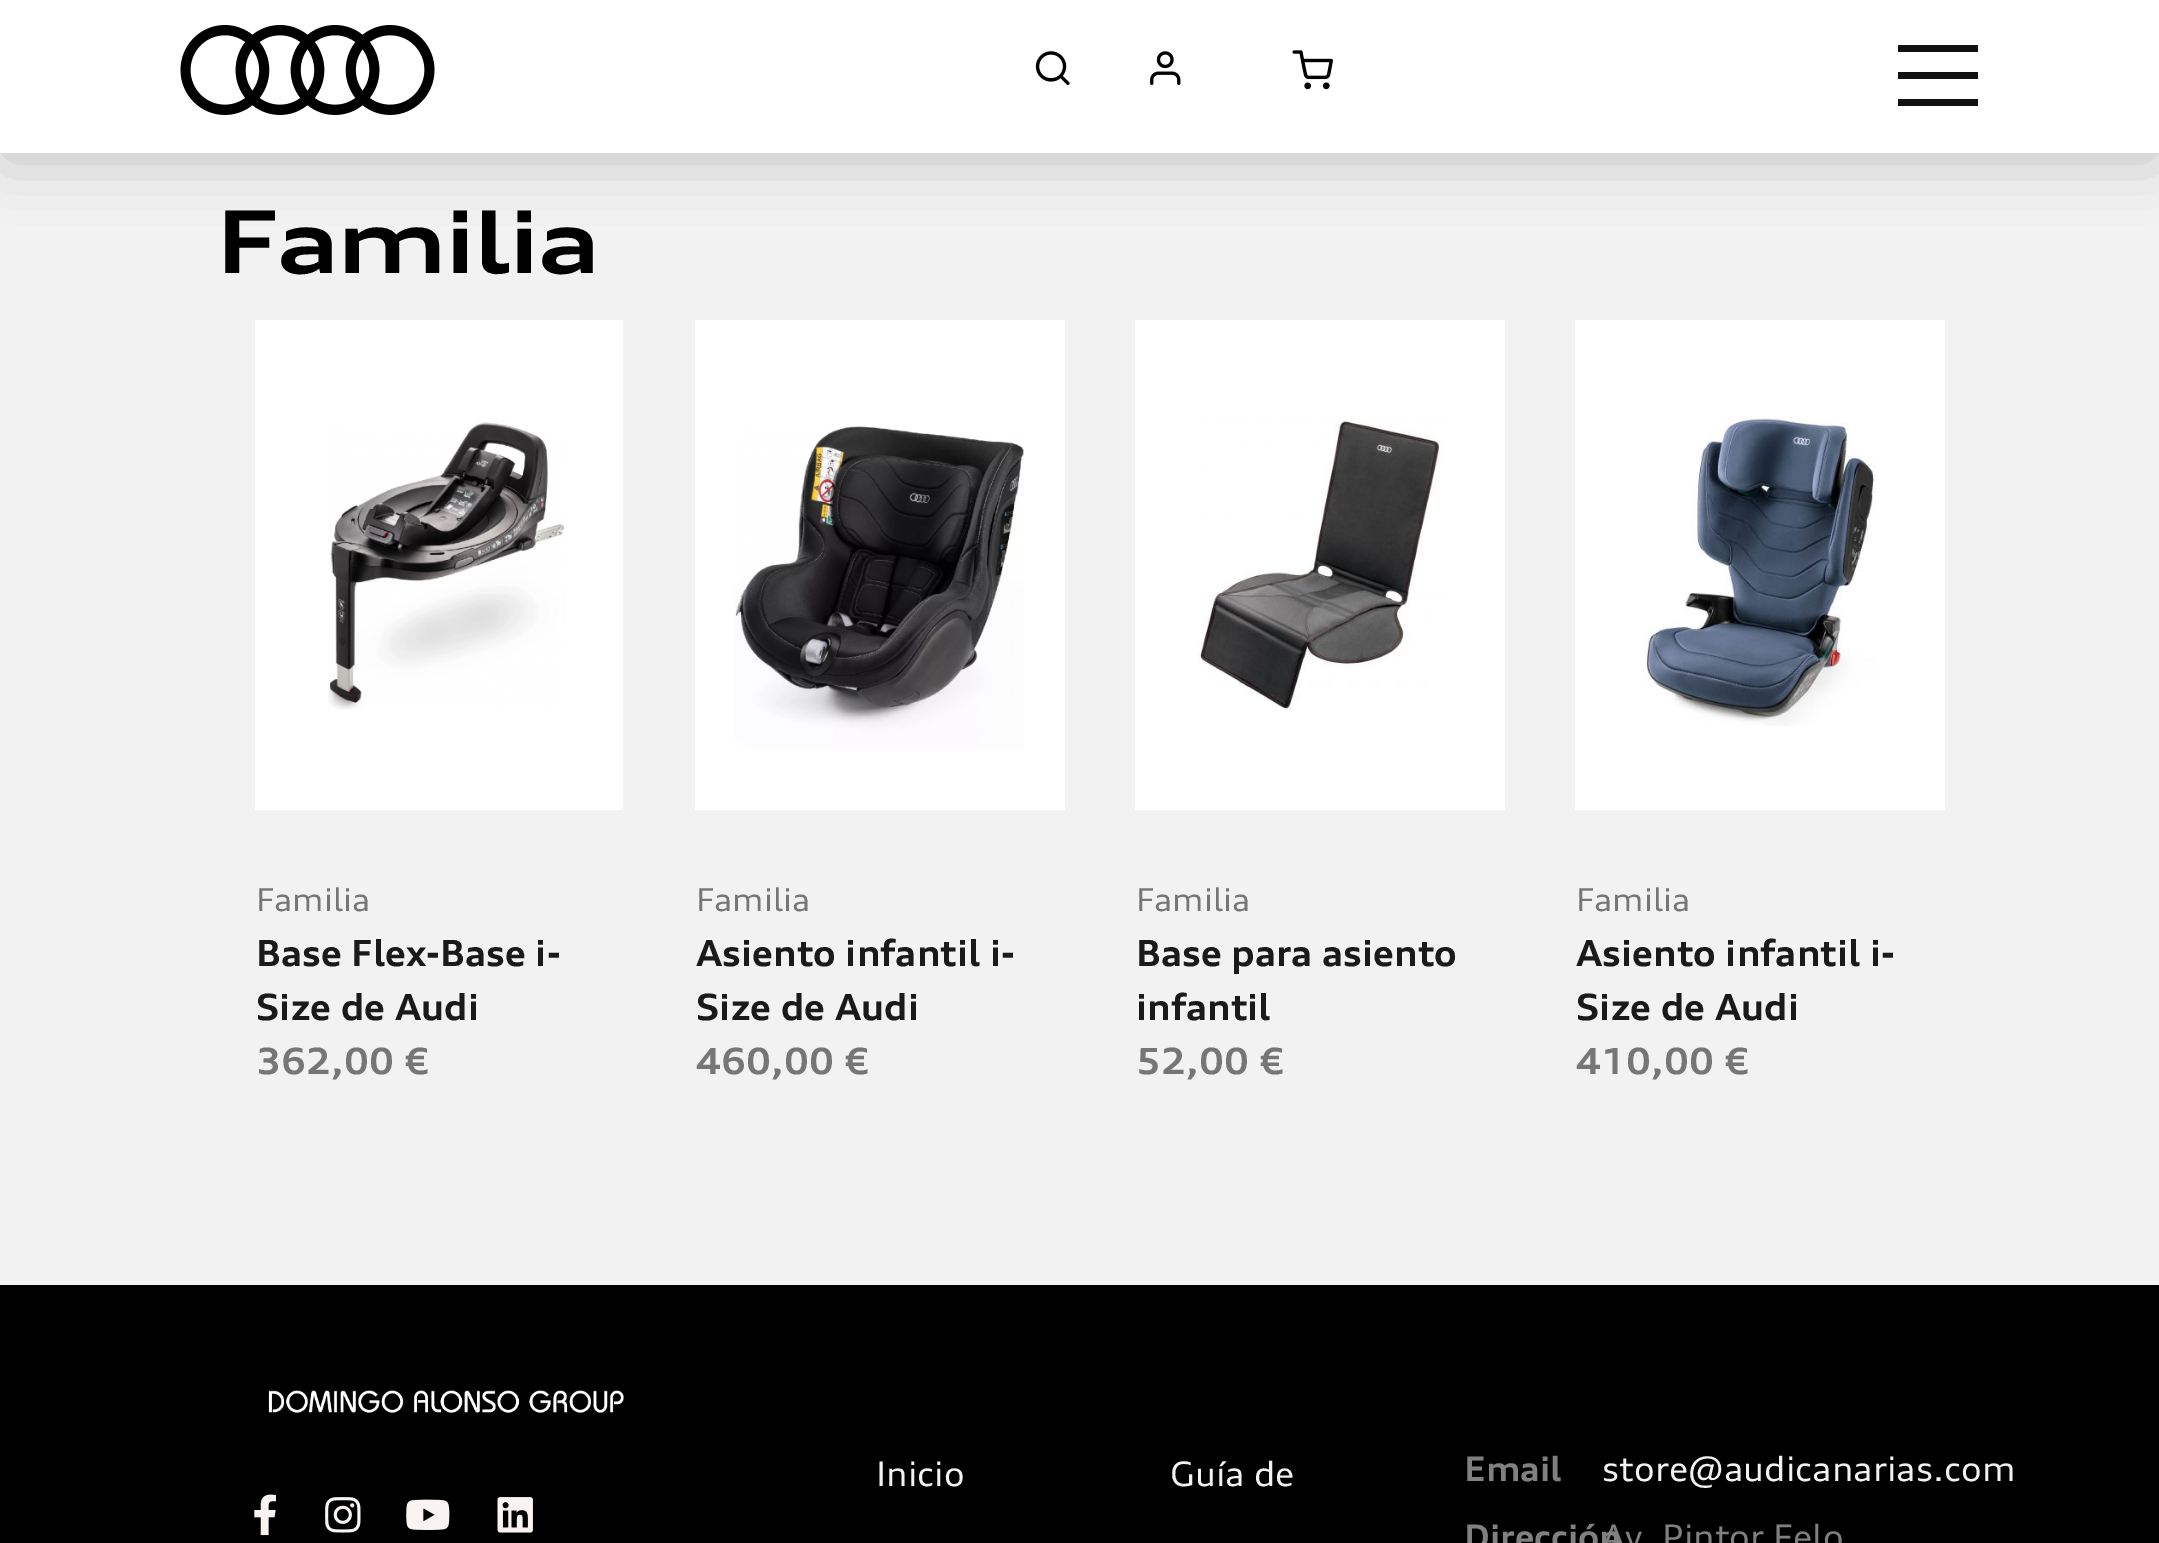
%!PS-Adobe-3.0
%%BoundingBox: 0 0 2159 1543
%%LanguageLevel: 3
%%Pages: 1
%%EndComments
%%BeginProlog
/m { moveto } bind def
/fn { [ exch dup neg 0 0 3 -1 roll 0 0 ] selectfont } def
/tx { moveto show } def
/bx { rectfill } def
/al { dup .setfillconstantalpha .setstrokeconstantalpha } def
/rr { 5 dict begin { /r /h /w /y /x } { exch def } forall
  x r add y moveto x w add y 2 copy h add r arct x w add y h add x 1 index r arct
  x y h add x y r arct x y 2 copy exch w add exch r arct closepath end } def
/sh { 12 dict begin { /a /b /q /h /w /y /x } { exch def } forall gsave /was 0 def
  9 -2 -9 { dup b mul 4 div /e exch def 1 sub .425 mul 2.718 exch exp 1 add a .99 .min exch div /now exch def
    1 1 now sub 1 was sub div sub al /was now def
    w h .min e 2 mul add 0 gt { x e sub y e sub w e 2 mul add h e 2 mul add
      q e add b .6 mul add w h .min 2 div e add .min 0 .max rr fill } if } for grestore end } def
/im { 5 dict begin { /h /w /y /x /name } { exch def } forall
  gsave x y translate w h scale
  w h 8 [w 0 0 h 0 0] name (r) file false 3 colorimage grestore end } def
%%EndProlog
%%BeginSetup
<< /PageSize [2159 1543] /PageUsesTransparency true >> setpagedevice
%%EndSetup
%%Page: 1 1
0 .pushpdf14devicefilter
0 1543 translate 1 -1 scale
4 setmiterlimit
0.949 setgray
0 0 2159 1543 bx
0 setgray
5 15 2150 143 0 30 0.2 sh
1 setgray
0 0 2159 153 bx
(image0.raw) 180 25 255 90 im
(image1.raw) 1035 51 35 34 im
(image2.raw) 1150 51 31 34 im
(image3.raw) 1292 50 41 40 im
0.067 setgray
1898 45 80 7 bx
1898 72 80 7 bx
1898 99 80 7 bx
/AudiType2-Bold 86.5 fn
0 setgray
216 273 m -1.75 0 (Familia) ashow
1 setgray
255 320 368 490 bx
(image4.raw) 328 422 237 288 im
/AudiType-Regular 31.5 fn
0.463 setgray
(Familia) 256 911 tx
/AudiType-Bold 36 fn
0.102 setgray
(Base Flex-Base i-) 256 966 tx
(Size de Audi) 256 1020 tx
0.463 setgray
(362,00 €) 256 1074 tx
1 setgray
695 320 370 490 bx
(image5.raw) 735 426 289 323 im
/AudiType-Regular 31.5 fn
0.463 setgray
(Familia) 696 911 tx
/AudiType-Bold 36 fn
0.102 setgray
(Asiento infantil i-) 696 966 tx
(Size de Audi) 696 1020 tx
0.463 setgray
(460,00 €) 696 1074 tx
1 setgray
1135 320 370 490 bx
(image6.raw) 1198 416 245 294 im
/AudiType-Regular 31.5 fn
0.463 setgray
(Familia) 1136 911 tx
/AudiType-Bold 36 fn
0.102 setgray
(Base para asiento) 1136 966 tx
(infantil) 1136 1020 tx
0.463 setgray
(52,00 €) 1136 1074 tx
1 setgray
1575 320 370 490 bx
(image7.raw) 1643 415 233 311 im
/AudiType-Regular 31.5 fn
0.463 setgray
(Familia) 1576 911 tx
/AudiType-Bold 36 fn
0.102 setgray
(Asiento infantil i-) 1576 966 tx
(Size de Audi) 1576 1020 tx
0.463 setgray
(410,00 €) 1576 1074 tx
0 setgray
0 1285 2159 258 bx
(image8.raw) 268 1390 356 23 im
(image9.raw) 254 1494 22 42 im
(image10.raw) 325 1497 36 36 im
(image11.raw) 406 1499 44 31 im
(image12.raw) 497 1497 36 36 im
/AudiType-Regular 33.75 fn
0.949 setgray
(Inicio) 876 1486 tx
(Guía de) 1170 1486 tx
/AudiType-Bold 33.75 fn
0.502 setgray
(Email) 1464 1481 tx
/AudiType-Regular 33.75 fn
0.949 setgray
(store@audicanarias.com) 1602 1481 tx
/AudiType-Bold 33.75 fn
0.502 setgray
(Dirección) 1464 1549 tx
/AudiType-Regular 33.75 fn
(Av. Pintor Felo) 1602 1549 tx
.poppdf14devicefilter showpage
%%EOF
